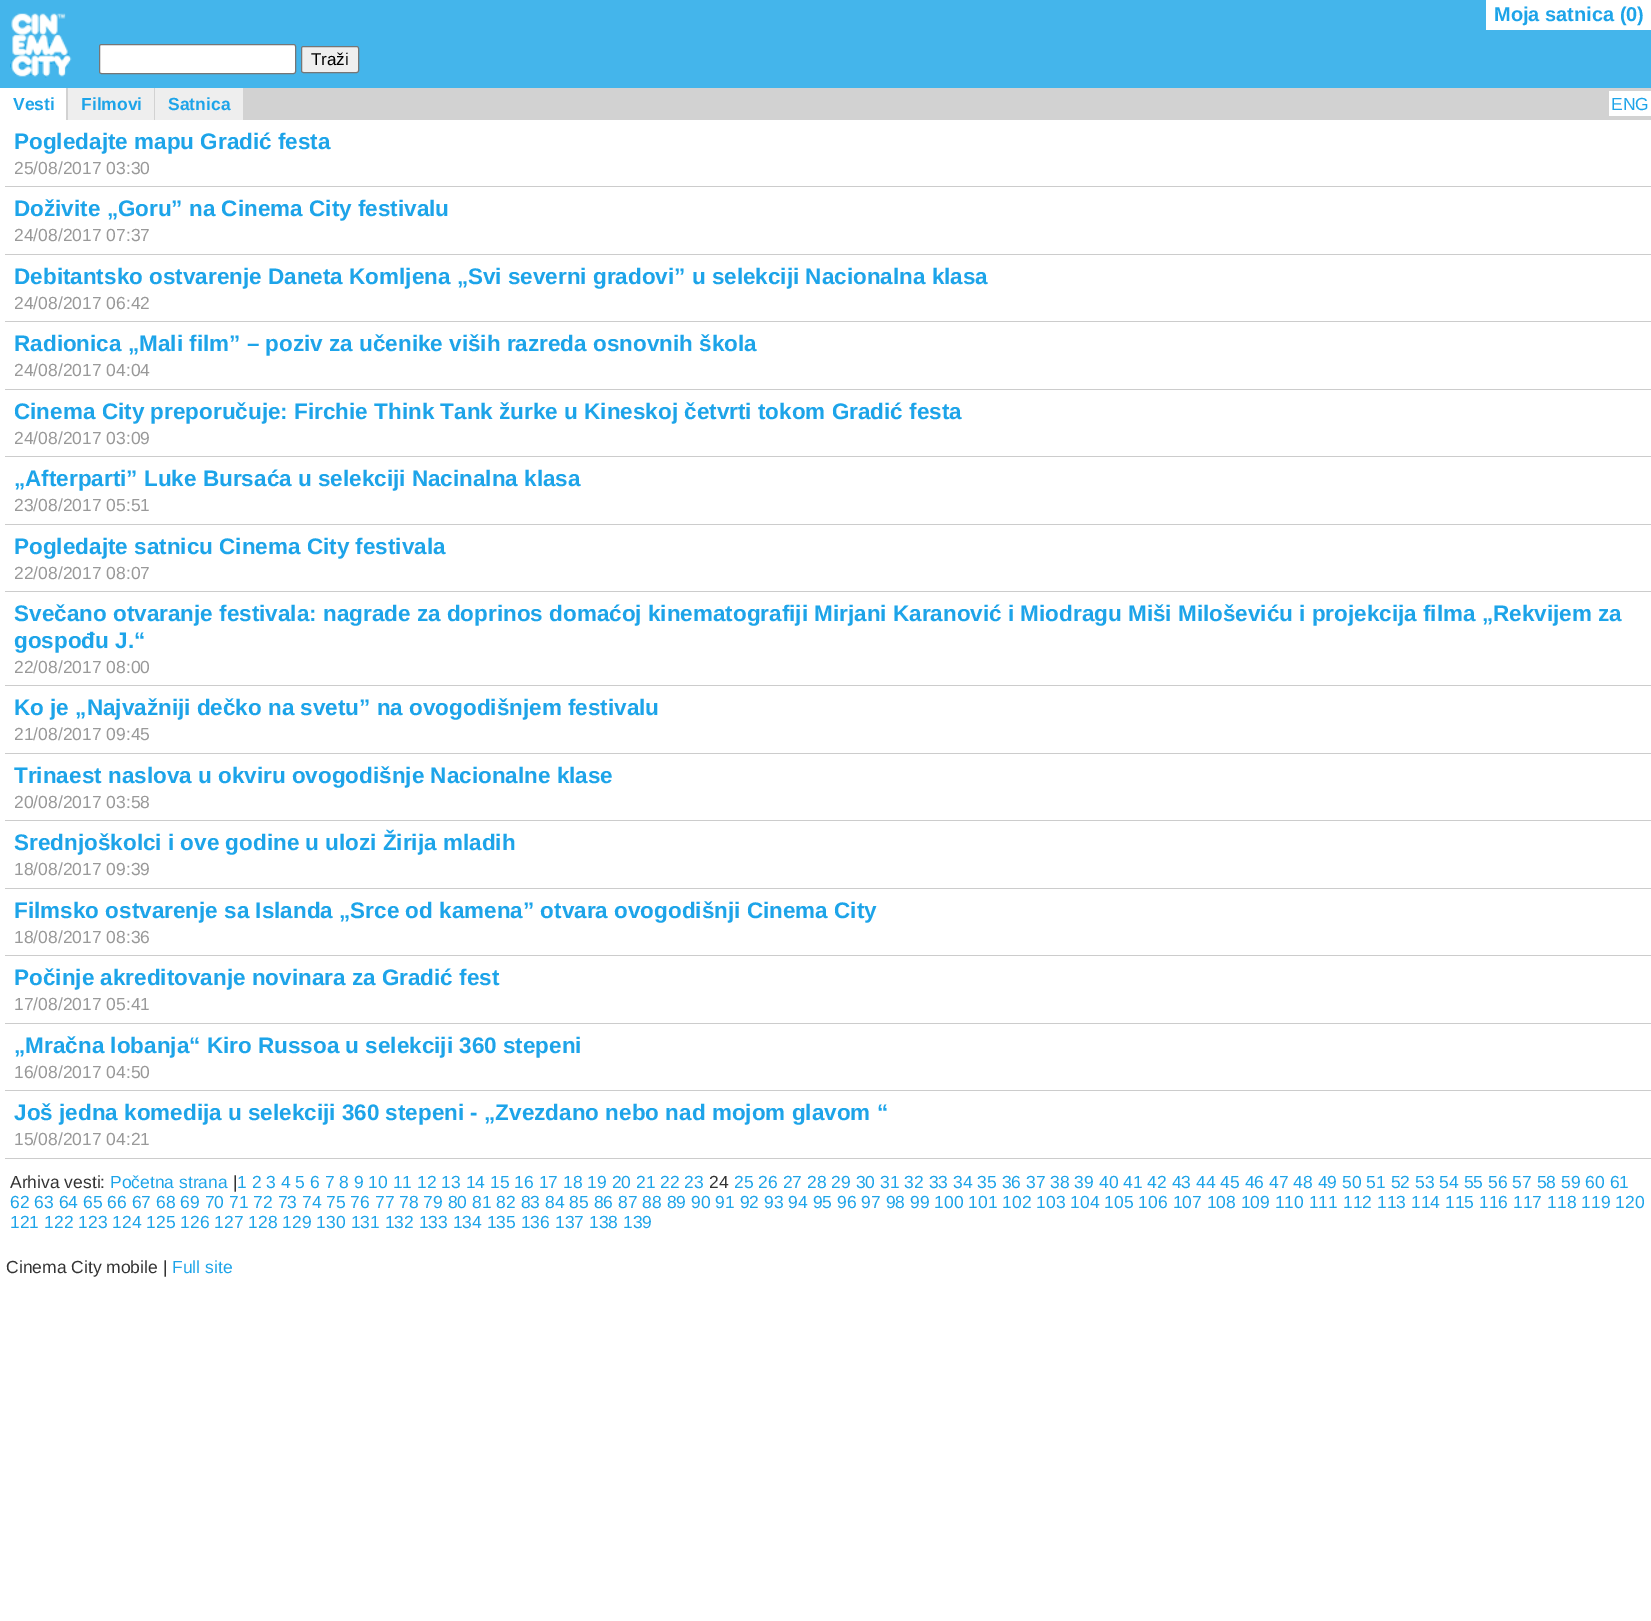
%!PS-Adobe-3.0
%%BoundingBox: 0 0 1651 1621
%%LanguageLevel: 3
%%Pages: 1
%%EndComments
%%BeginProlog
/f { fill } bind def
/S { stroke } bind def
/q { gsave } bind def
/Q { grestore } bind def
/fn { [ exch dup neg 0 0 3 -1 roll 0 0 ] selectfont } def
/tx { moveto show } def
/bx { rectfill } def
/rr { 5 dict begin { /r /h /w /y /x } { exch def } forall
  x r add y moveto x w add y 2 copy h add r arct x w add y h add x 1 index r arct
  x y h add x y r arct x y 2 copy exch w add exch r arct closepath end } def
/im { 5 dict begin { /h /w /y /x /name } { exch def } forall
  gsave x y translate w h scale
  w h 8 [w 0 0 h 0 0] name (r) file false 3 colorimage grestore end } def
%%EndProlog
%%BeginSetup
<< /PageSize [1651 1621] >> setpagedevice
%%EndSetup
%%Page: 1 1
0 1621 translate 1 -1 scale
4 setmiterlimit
1 setgray
0 0 1651 1621 bx
0.267 0.71 0.922 setrgbcolor
0 0 1651 88 bx
1 setgray
1486 0 165 30 bx
/LiberationSans-Bold 20 fn
0.114 0.643 0.914 setrgbcolor
(Moja satnica \(0\)) 1494 21 tx
(image0.raw) 10 13 62 65 im
1 setgray
99.5 44.5 196 29 2 rr q f Q
0.463 setgray
S
0.937 setgray
301.5 46.5 57 26 2 rr q f Q
0.463 setgray
S
/LiberationSans-Regular 17 fn
0 setgray
(Traži) 311 65 tx
0.824 setgray
66 88 1585 32 bx
/LiberationSans-Bold 17.5 fn
0.114 0.643 0.914 setrgbcolor
(Vesti) 13 110 tx
0.933 setgray
68 88 86 32 bx
0.114 0.643 0.914 setrgbcolor
(Filmovi) 81 110 tx
0.933 setgray
155 88 88 32 bx
0.114 0.643 0.914 setrgbcolor
(Satnica) 168 110 tx
1 setgray
1609 91 42 25 bx
/LiberationSans-Regular 17.5 fn
0.114 0.643 0.914 setrgbcolor
(ENG) 1611 110 tx
0.8 setgray
5 186 1646 1 bx
/LiberationSans-Bold 22.5 fn
0.114 0.643 0.914 setrgbcolor
(Pogledajte mapu Gradić festa) 14 149 tx
/LiberationSans-Regular 17.5 fn
0.6 setgray
(25/08/2017 03:30) 14 174 tx
0.8 setgray
5 254 1646 1 bx
/LiberationSans-Bold 22.5 fn
0.114 0.643 0.914 setrgbcolor
(Doživite „Goru” na Cinema City festivalu) 14 216 tx
/LiberationSans-Regular 17.5 fn
0.6 setgray
(24/08/2017 07:37) 14 241 tx
0.8 setgray
5 321 1646 1 bx
/LiberationSans-Bold 22.5 fn
0.114 0.643 0.914 setrgbcolor
(Debitantsko ostvarenje Daneta Komljena „Svi severni gradovi” u selekciji Nacionalna klasa) 14 284 tx
/LiberationSans-Regular 17.5 fn
0.6 setgray
(24/08/2017 06:42) 14 309 tx
0.8 setgray
5 389 1646 1 bx
/LiberationSans-Bold 22.5 fn
0.114 0.643 0.914 setrgbcolor
(Radionica „Mali film” – poziv za učenike viših razreda osnovnih škola) 14 351 tx
/LiberationSans-Regular 17.5 fn
0.6 setgray
(24/08/2017 04:04) 14 376 tx
0.8 setgray
5 456 1646 1 bx
/LiberationSans-Bold 22.5 fn
0.114 0.643 0.914 setrgbcolor
(Cinema City preporučuje: Firchie Think Tank žurke u Kineskoj četvrti tokom Gradić festa) 14 419 tx
/LiberationSans-Regular 17.5 fn
0.6 setgray
(24/08/2017 03:09) 14 444 tx
0.8 setgray
5 524 1646 1 bx
/LiberationSans-Bold 22.5 fn
0.114 0.643 0.914 setrgbcolor
(„Afterparti” Luke Bursaća u selekciji Nacinalna klasa) 14 486 tx
/LiberationSans-Regular 17.5 fn
0.6 setgray
(23/08/2017 05:51) 14 511 tx
0.8 setgray
5 591 1646 1 bx
/LiberationSans-Bold 22.5 fn
0.114 0.643 0.914 setrgbcolor
(Pogledajte satnicu Cinema City festivala) 14 554 tx
/LiberationSans-Regular 17.5 fn
0.6 setgray
(22/08/2017 08:07) 14 579 tx
0.8 setgray
5 685 1646 1 bx
/LiberationSans-Bold 22.5 fn
0.114 0.643 0.914 setrgbcolor
(Svečano otvaranje festivala: nagrade za doprinos domaćoj kinematografiji Mirjani Karanović i Miodragu Miši Miloševiću i projekcija filma „Rekvijem za) 14 621 tx
(gospođu J.“) 14 648 tx
/LiberationSans-Regular 17.5 fn
0.6 setgray
(22/08/2017 08:00) 14 673 tx
0.8 setgray
5 753 1646 1 bx
/LiberationSans-Bold 22.5 fn
0.114 0.643 0.914 setrgbcolor
(Ko je „Najvažniji dečko na svetu” na ovogodišnjem festivalu) 14 715 tx
/LiberationSans-Regular 17.5 fn
0.6 setgray
(21/08/2017 09:45) 14 740 tx
0.8 setgray
5 820 1646 1 bx
/LiberationSans-Bold 22.5 fn
0.114 0.643 0.914 setrgbcolor
(Trinaest naslova u okviru ovogodišnje Nacionalne klase) 14 783 tx
/LiberationSans-Regular 17.5 fn
0.6 setgray
(20/08/2017 03:58) 14 808 tx
0.8 setgray
5 888 1646 1 bx
/LiberationSans-Bold 22.5 fn
0.114 0.643 0.914 setrgbcolor
(Srednjoškolci i ove godine u ulozi Žirija mladih) 14 850 tx
/LiberationSans-Regular 17.5 fn
0.6 setgray
(18/08/2017 09:39) 14 875 tx
0.8 setgray
5 955 1646 1 bx
/LiberationSans-Bold 22.5 fn
0.114 0.643 0.914 setrgbcolor
(Filmsko ostvarenje sa Islanda „Srce od kamena” otvara ovogodišnji Cinema City) 14 918 tx
/LiberationSans-Regular 17.5 fn
0.6 setgray
(18/08/2017 08:36) 14 943 tx
0.8 setgray
5 1023 1646 1 bx
/LiberationSans-Bold 22.5 fn
0.114 0.643 0.914 setrgbcolor
(Počinje akreditovanje novinara za Gradić fest) 14 985 tx
/LiberationSans-Regular 17.5 fn
0.6 setgray
(17/08/2017 05:41) 14 1010 tx
0.8 setgray
5 1090 1646 1 bx
/LiberationSans-Bold 22.5 fn
0.114 0.643 0.914 setrgbcolor
(„Mračna lobanja“ Kiro Russoa u selekciji 360 stepeni) 14 1053 tx
/LiberationSans-Regular 17.5 fn
0.6 setgray
(16/08/2017 04:50) 14 1078 tx
0.8 setgray
5 1158 1646 1 bx
/LiberationSans-Bold 22.5 fn
0.114 0.643 0.914 setrgbcolor
(Još jedna komedija u selekciji 360 stepeni - „Zvezdano nebo nad mojom glavom “) 14 1120 tx
/LiberationSans-Regular 17.5 fn
0.6 setgray
(15/08/2017 04:21) 14 1145 tx
0.2 setgray
(Arhiva vesti:) 10 1188 tx
0.114 0.643 0.914 setrgbcolor
(Početna strana) 110 1188 tx
0.2 setgray
(|) 233 1188 tx
0.114 0.643 0.914 setrgbcolor
(1 2 3 4 5 6 7 8 9 10 11 12 13 14 15 16 17 18 19 20 21 22 23) 237 1188 tx
0.2 setgray
(24) 709 1188 tx
0.114 0.643 0.914 setrgbcolor
(25 26 27 28 29 30 31 32 33 34 35 36 37 38 39 40 41 42 43 44 45 46 47 48 49 50 51 52 53 54 55 56 57 58 59 60 61) 734 1188 tx
(62 63 64 65 66 67 68 69 70 71 72 73 74 75 76 77 78 79 80 81 82 83 84 85 86 87 88 89 90 91 92 93 94 95 96 97 98 99 100 101 102 103 104 105 106 107 108 109 110 111 112 113 114 115 116 117 118 119 120) 10 1208 tx
(121 122 123 124 125 126 127 128 129 130 131 132 133 134 135 136 137 138 139) 10 1228 tx
0.2 setgray
(Cinema City mobile |) 6 1273 tx
0.114 0.643 0.914 setrgbcolor
(Full site) 172 1273 tx
showpage
%%EOF
